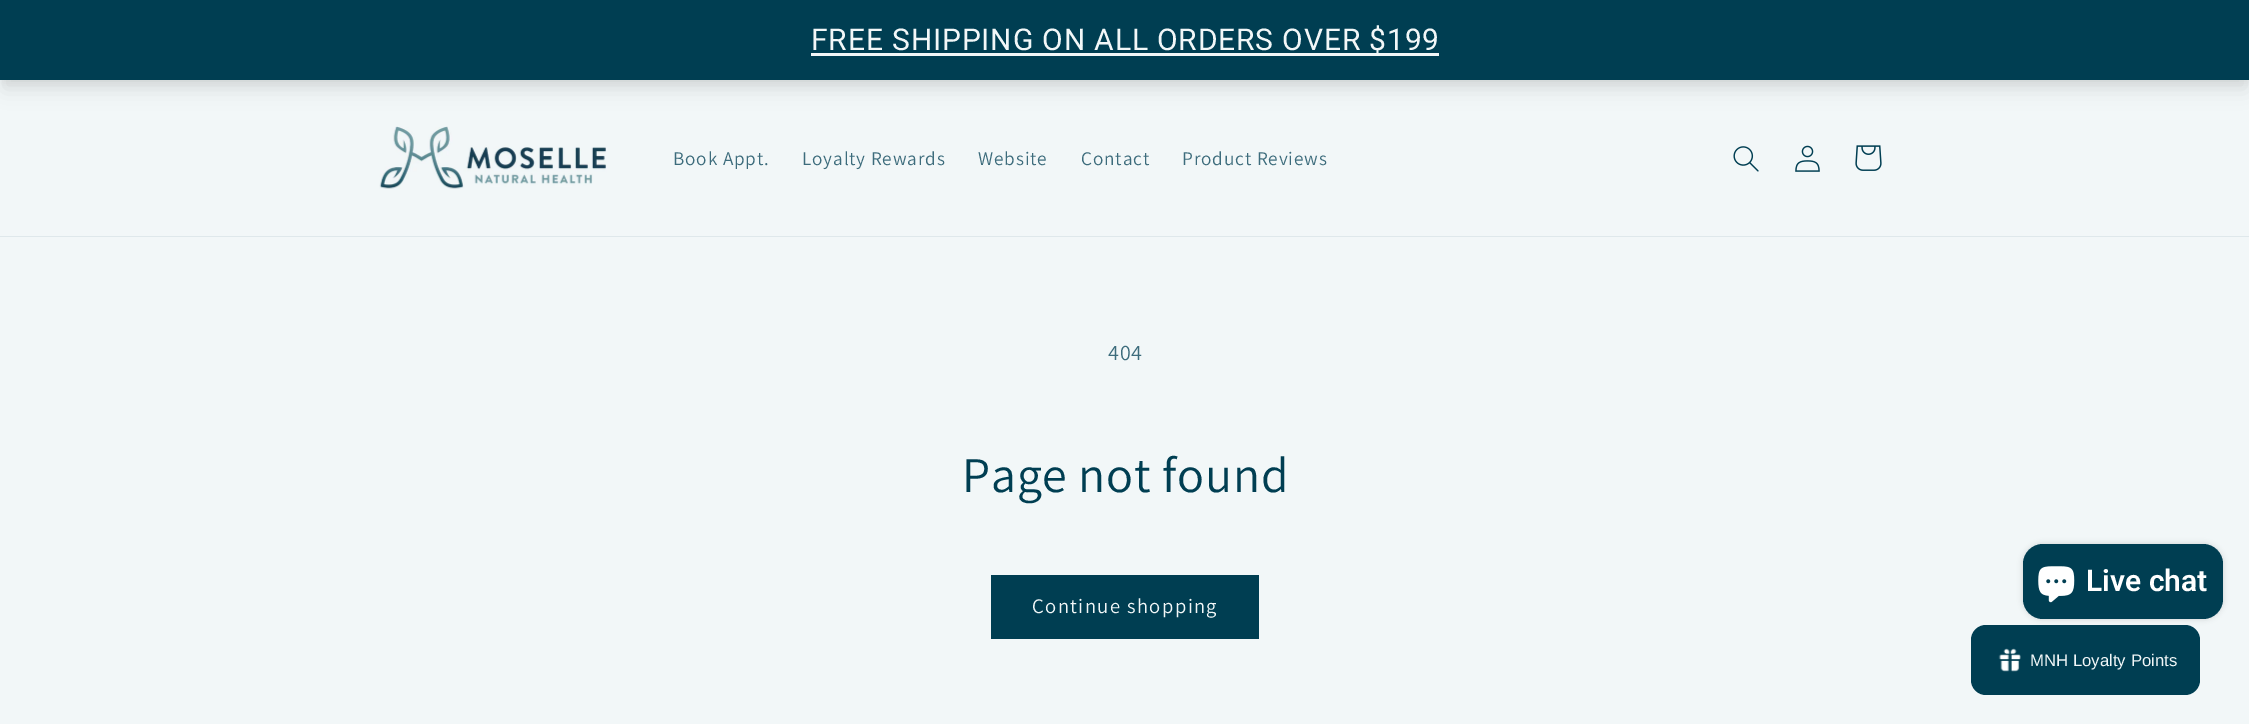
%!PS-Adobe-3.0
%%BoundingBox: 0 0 2249 724
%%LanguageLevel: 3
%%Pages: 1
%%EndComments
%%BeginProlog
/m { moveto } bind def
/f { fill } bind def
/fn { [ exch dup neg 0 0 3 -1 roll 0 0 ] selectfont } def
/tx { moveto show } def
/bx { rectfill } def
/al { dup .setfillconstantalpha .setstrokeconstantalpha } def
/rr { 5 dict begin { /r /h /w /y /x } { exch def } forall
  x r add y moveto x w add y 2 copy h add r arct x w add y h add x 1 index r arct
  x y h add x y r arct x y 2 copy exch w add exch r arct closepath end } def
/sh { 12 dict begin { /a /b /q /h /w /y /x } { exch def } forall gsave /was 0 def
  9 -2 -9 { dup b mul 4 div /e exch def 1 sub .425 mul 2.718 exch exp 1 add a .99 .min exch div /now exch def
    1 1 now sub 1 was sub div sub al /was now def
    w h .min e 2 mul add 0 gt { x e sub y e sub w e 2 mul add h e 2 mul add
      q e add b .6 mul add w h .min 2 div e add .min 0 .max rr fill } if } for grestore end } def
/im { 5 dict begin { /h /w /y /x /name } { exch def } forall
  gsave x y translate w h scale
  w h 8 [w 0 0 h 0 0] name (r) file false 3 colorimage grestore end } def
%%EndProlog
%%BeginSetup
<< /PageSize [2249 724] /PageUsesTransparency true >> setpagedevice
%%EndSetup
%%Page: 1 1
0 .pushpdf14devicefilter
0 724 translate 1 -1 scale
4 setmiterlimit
0.949 0.969 0.973 setrgbcolor
0 0 2249 724 bx
0 setgray
3 8 2245 75 0 4 0.05 sh
4 16 2242 73 0 9.5 0.1 sh
0 0.243 0.322 setrgbcolor
0 0 2249 80 bx
0.949 0.969 0.973 setrgbcolor
811 53 628 3 bx
/Roboto-Regular 30 fn
811 50 m 0.85 0 (FREE SHIPPING ON ALL ORDERS OVER $199) ashow
0.875 0.91 0.922 setrgbcolor
0 236 2249 1 bx
(image0.raw) 379 126 228 63 im
/Assistant-Regular 19.25 fn
0.239 0.424 0.486 setrgbcolor
673 165 m 0.85 0 (Book Appt.) ashow
802 165 m 0.85 0 (Loyalty Rewards) ashow
978 165 m 0.85 0 (Website) ashow
1081 165 m 0.85 0 (Contact) ashow
1182 165 m 0.85 0 (Product Reviews) ashow
(image1.raw) 1733 146 26 26 im
(image2.raw) 1795 145 25 27 im
(image3.raw) 1855 145 27 26 im
/Assistant-Regular 22 fn
1108 360 m 0.85 0 (404) ashow
/Assistant-Regular 50 fn
0 0.243 0.322 setrgbcolor
962 492 m 0.75 0 (Page not found) ashow
991 575 268 64 bx
/Assistant-Regular 20.6 fn
0.949 0.969 0.973 setrgbcolor
1032 613 m 1.4 0 (Continue shopping) ashow
0 0.243 0.322 setrgbcolor
1971 625 229 70 15 rr f
0 setgray
2023 544 200 75 20 3 0.15 sh
0 0.243 0.322 setrgbcolor
2023 544 200 75 20 rr f
(image4.raw) 2038 566 37 37 im
/Roboto-SemiBold 30 fn
1 setgray
(Live chat) 2086 591 tx
(image5.raw) 1998 648 23 24 im
/LiberationSans-Regular 16.75 fn
0.949 0.969 0.973 setrgbcolor
(MNH Loyalty Points) 2030 666 tx
.poppdf14devicefilter showpage
%%EOF
